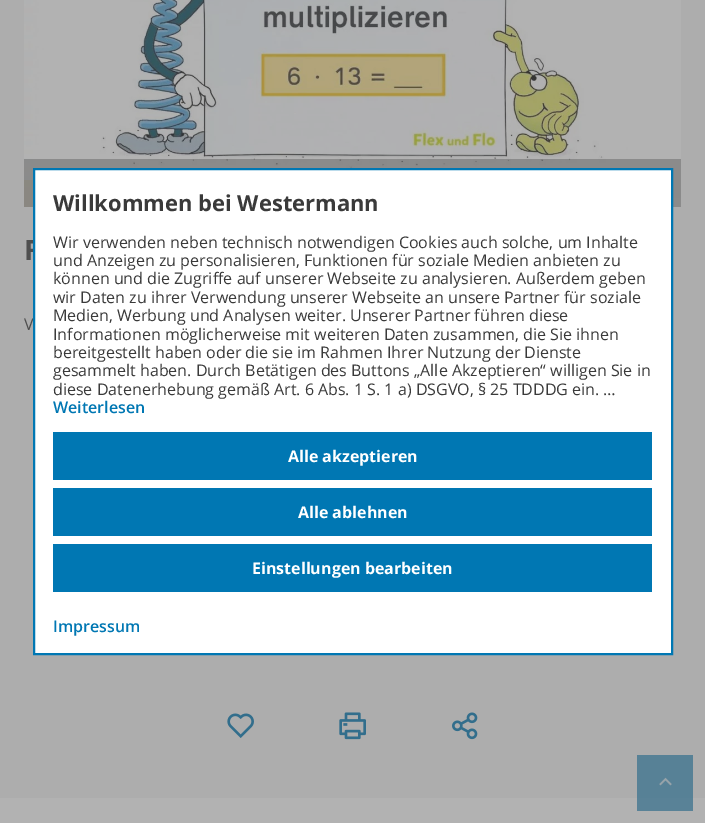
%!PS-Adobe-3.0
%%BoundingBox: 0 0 705 823
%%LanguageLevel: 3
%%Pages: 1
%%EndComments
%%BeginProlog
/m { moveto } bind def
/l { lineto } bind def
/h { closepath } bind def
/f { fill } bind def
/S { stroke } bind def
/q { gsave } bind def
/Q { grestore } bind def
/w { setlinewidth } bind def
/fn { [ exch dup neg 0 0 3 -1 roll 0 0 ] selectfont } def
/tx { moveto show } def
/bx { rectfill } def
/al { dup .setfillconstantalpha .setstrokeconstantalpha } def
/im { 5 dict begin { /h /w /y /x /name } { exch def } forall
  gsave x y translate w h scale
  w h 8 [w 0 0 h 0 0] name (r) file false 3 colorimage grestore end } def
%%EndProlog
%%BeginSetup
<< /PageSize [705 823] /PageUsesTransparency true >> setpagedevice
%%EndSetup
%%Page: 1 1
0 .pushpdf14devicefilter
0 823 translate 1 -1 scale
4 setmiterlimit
0.698 setgray
0 0 705 823 bx
0.349 0.51 0.592 setrgbcolor
637 798 56 13 bx
0.678 setgray
0 0 705 798 bx
0.341 0.506 0.588 setrgbcolor
637 755 56 43 bx
(image0.raw) 24 0 657 207 im
0.5 al
0.392 setgray
24 159 657 48 bx
/OpenSans-Bold 28 fn
1 al
0.31 setgray
(F) 24 260 tx
/OpenSans-Regular 16 fn
(V) 24 330 tx
(image1.raw) 227 713 27 25 im
(image2.raw) 339 712 27 28 im
(image3.raw) 452 712 26 28 im
(image4.raw) 659 777 13 9 im
1 setgray
34 169 m 672 169 l 672 654 l 34 654 l h q f Q
0 0.467 0.702 setrgbcolor
2 w
S
/OpenSans-Bold 22 fn
0.227 setgray
(Willkommen bei Westermann) 53 211 tx
/OpenSans-Regular 16 fn
(Wir verwenden neben technisch notwendigen Cookies auch solche, um Inhalte) 53 248 tx
(und Anzeigen zu personalisieren, Funktionen für soziale Medien anbieten zu) 53 266 tx
(können und die Zugriffe auf unserer Webseite zu analysieren. Außerdem geben) 53 284 tx
(wir Daten zu ihrer Verwendung unserer Webseite an unsere Partner für soziale) 53 303 tx
(Medien, Werbung und Analysen weiter. Unserer Partner führen diese) 53 321 tx
(Informationen möglicherweise mit weiteren Daten zusammen, die Sie ihnen) 53 340 tx
(bereitgestellt haben oder die sie im Rahmen Ihrer Nutzung der Dienste) 53 358 tx
(gesammelt haben. Durch Betätigen des Buttons „Alle Akzeptieren“ willigen Sie in) 53 376 tx
(diese Datenerhebung gemäß Art. 6 Abs. 1 S. 1 a\) DSGVO, § 25 TDDDG ein. …) 53 395 tx
/OpenSans-SemiBold 16 fn
0 0.467 0.702 setrgbcolor
(Weiterlesen) 53 413 tx
53 432 599 48 bx
/OpenSans-Bold 16 fn
1 setgray
(Alle akzeptieren) 288 462 tx
0 0.467 0.702 setrgbcolor
53 488 599 48 bx
1 setgray
(Alle ablehnen) 298 518 tx
0 0.467 0.702 setrgbcolor
53 544 599 48 bx
1 setgray
(Einstellungen bearbeiten) 252 574 tx
/OpenSans-SemiBold 16 fn
0 0.467 0.702 setrgbcolor
(Impressum) 53 632 tx
.poppdf14devicefilter showpage
%%EOF
